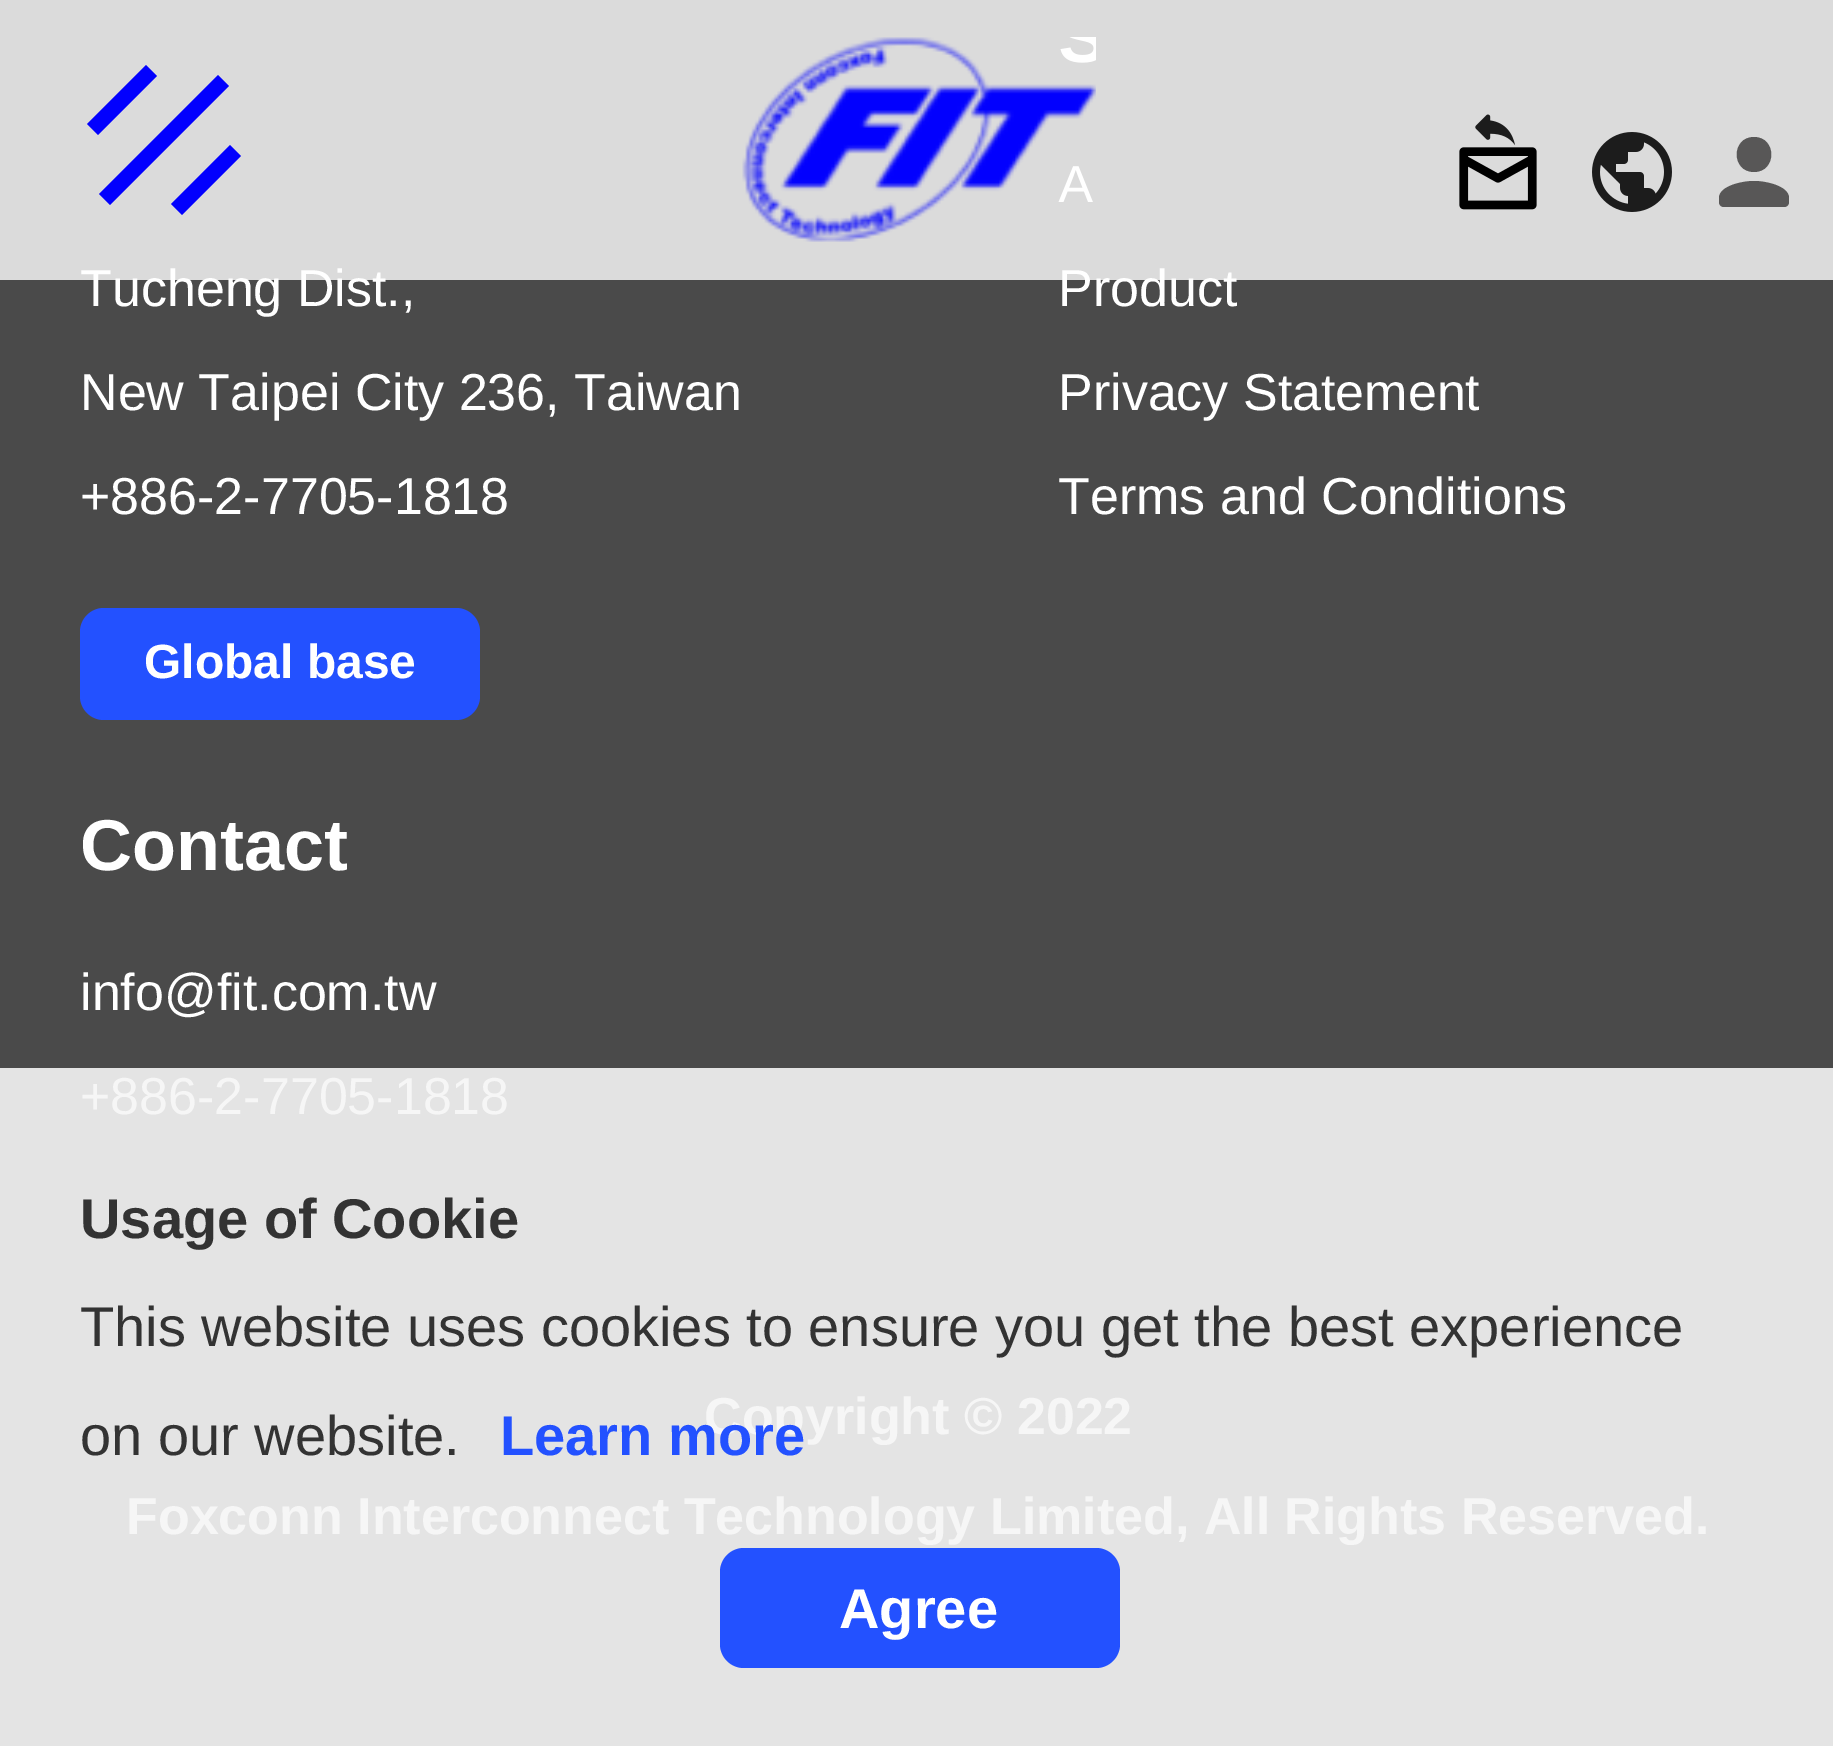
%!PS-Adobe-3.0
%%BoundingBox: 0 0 1833 1746
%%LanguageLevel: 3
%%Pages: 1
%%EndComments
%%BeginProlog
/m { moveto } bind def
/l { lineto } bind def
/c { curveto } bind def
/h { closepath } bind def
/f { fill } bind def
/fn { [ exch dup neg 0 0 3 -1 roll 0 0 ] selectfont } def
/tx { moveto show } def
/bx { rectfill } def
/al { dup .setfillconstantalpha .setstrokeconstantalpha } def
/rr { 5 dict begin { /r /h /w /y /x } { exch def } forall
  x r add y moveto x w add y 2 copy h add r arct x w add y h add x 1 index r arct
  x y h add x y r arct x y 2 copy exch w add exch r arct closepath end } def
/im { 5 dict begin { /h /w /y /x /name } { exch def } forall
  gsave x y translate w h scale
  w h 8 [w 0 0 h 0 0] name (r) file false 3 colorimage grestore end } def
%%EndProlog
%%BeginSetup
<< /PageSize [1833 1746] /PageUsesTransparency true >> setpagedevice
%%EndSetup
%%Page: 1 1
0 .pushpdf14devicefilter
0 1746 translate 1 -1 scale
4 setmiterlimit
0.29 setgray
0 0 1833 1746 bx
/LiberationSans-Regular 52 fn
1 setgray
(Tucheng Dist.,) 80 306 tx
(Product) 1058 306 tx
0.8 al
0 0 1833 280 bx
1 al
0.008 0 0.996 setrgbcolor
87 124 m 146 65 l 157 76 l 98 135 l h f
99 194 m 218 75 l 229 86 l 110 205 l h f
171 204 m 230 145 l 241 156 l 182 215 l h f
(image0.raw) 742 37 354 205 im
(image1.raw) 1459 114 78 96 im
(image2.raw) 1592 132 80 80 im
0.345 0.341 0.341 setrgbcolor
1754 172 m 1777 172 1777 137 1754 137 c 1731 137 1731 172 1754 172 c h 1754 181 m 1742 181 1719 186 1719 198 c 1719 202 l 1719 205 1721 207 1724 207 c 1784 207 l 1787 207 1789 205 1789 202 c 1789 198 l 1789 186 1766 181 1754 181 c h eofill
0.894 setgray
0 1068 1833 678 bx
1 setgray
(New Taipei City 236, Taiwan) 80 410 tx
(+886-2-7705-1818) 80 514 tx
0.137 0.318 1 setrgbcolor
80 608 400 112 24 rr f
/LiberationSans-Bold 48 fn
1 setgray
(Global base) 144 678 tx
/LiberationSans-Regular 52 fn
(Privacy Statement) 1058 410 tx
(Terms and Conditions) 1058 514 tx
/LiberationSans-Bold 72 fn
(Contact) 80 870 tx
/LiberationSans-Regular 52 fn
(info@fit.com.tw) 80 1010 tx
0.965 setgray
(+886-2-7705-1818) 80 1114 tx
/LiberationSans-Bold 52 fn
(Copyright © 2022) 704 1434 tx
(Foxconn Interconnect Technology Limited, All Rights Reserved.) 126 1534 tx
/LiberationSans-Bold 56 fn
0.2 setgray
(Usage of Cookie) 80 1238 tx
/LiberationSans-Regular 56 fn
(This website uses cookies to ensure you get the best experience) 80 1346 tx
(on our website.) 80 1455 tx
/LiberationSans-Bold 56 fn
0.137 0.318 1 setrgbcolor
(Learn more) 500 1455 tx
720 1548 400 120 24 rr f
1 setgray
(Agree) 839 1628 tx
.poppdf14devicefilter showpage
%%EOF
